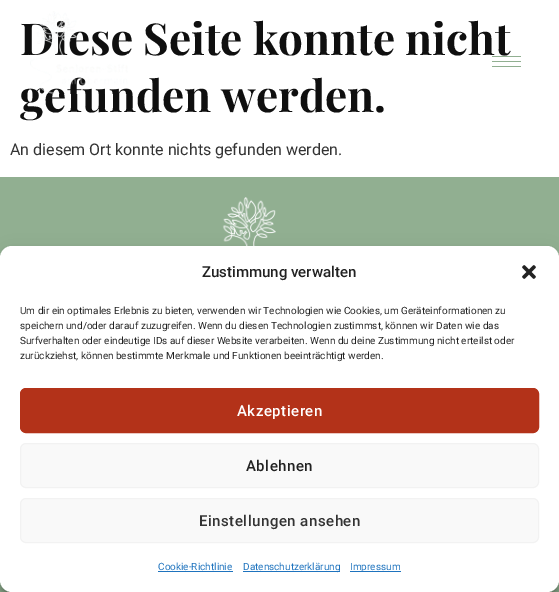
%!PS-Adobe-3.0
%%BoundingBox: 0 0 559 592
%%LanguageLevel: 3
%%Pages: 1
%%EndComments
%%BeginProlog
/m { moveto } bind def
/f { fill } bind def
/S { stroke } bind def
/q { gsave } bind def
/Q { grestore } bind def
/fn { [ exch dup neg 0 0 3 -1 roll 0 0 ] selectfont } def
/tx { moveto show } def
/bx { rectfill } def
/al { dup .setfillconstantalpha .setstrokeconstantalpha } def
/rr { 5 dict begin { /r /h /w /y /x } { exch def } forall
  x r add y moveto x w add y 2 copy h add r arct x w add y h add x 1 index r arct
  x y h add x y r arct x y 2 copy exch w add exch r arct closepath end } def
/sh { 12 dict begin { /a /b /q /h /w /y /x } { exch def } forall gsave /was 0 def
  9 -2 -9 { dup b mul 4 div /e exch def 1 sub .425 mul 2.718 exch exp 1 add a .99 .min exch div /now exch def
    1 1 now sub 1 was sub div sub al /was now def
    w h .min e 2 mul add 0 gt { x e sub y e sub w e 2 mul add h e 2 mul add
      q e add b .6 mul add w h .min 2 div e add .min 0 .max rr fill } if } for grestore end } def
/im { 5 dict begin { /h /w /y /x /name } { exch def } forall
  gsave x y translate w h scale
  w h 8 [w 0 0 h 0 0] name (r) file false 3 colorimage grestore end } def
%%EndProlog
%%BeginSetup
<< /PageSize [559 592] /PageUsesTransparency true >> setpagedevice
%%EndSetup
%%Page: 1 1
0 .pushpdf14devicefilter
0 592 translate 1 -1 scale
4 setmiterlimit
1 setgray
0 0 559 592 bx
/PlayfairDisplay-Bold 44 fn
0.059 setgray
(Diese Seite konnte nicht) 20 55 tx
(gefunden werden.) 20 112 tx
(image0.raw) 30 11 98 83 im
0.569 0.686 0.569 setrgbcolor
492 56 29 1 bx
492 61 29 1 bx
492 66 29 1 bx
/Roboto-Regular 16 fn
0.2 setgray
(An diesem Ort konnte nichts gefunden werden.) 10 155 tx
0.569 0.686 0.569 setrgbcolor
0 177 559 415 bx
(image1.raw) 222 197 54 49 im
0 setgray
0 252 559 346 12 3 0.23 sh
0 256 559 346 12 10 0.19 sh
1 setgray
0 246 559 346 12 rr f
/Roboto-Medium 15 fn
0.133 setgray
(Zustimmung verwalten) 202 277 tx
(image2.raw) 522 265 14 14 im
/Roboto-Regular 10 fn
(Um dir ein optimales Erlebnis zu bieten, verwenden wir Technologien wie Cookies, um Geräteinformationen zu) 20 314 tx
(speichern und/oder darauf zuzugreifen. Wenn du diesen Technologien zustimmst, können wir Daten wie das) 20 329 tx
(Surfverhalten oder eindeutige IDs auf dieser Website verarbeiten. Wenn du deine Zustimmung nicht erteilst oder) 20 344 tx
(zurückziehst, können bestimmte Merkmale und Funktionen beeinträchtigt werden.) 20 359 tx
0.702 0.196 0.098 setrgbcolor
20.5 388.5 518 44 5.5 rr q f Q
S
/Roboto-Medium 15 fn
1 setgray
237 416 m 0.5 0 (Akzeptieren) ashow
0.976 setgray
20.5 443.5 518 44 5.5 rr q f Q
0.949 setgray
S
0.133 setgray
246 471 m 0.5 0 (Ablehnen) ashow
0.976 setgray
20.5 498.5 518 44 5.5 rr q f Q
0.949 setgray
S
0.2 setgray
199 526 m 0.5 0 (Einstellungen ansehen) ashow
/Roboto-Regular 10 fn
0.118 0.451 0.745 setrgbcolor
(Cookie-Richtlinie) 158 570 tx
158 571 75 1 bx
243 571 97 1 bx
(Datenschutzerklärung) 243 570 tx
350 571 51 1 bx
(Impressum) 350 570 tx
.poppdf14devicefilter showpage
%%EOF
